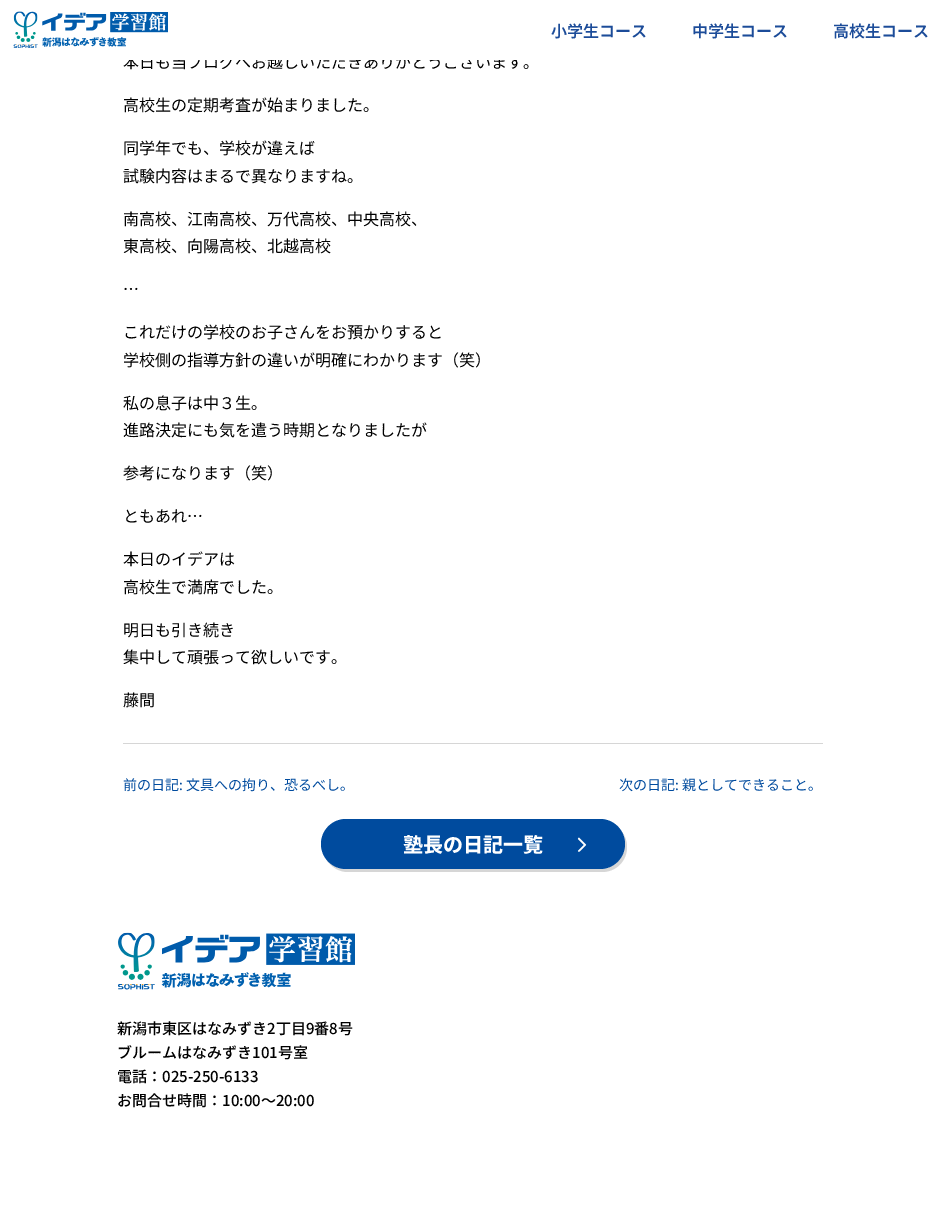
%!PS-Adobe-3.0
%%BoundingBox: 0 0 945 1220
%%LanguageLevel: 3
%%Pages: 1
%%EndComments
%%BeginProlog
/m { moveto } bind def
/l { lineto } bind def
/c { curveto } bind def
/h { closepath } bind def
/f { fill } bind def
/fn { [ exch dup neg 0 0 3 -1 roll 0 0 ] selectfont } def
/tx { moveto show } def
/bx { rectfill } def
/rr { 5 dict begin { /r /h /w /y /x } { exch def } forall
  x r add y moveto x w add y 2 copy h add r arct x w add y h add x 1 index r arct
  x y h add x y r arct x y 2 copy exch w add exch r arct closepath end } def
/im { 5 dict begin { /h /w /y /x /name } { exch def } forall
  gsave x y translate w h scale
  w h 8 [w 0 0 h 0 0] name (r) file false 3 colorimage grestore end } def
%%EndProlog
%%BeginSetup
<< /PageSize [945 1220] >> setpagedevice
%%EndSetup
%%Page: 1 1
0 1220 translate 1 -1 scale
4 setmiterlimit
1 setgray
0 0 945 1220 bx
/NotoSansJP-Regular 16 fn
0 setgray
(本日も当ブログへお越しいただきありがとうございます。) 123 68 tx
1 setgray
123 54 399 6 bx
(image0.raw) 13 11 155 37 im
/NotoSansJP-SemiBold 16 fn
0.11 0.298 0.6 setrgbcolor
(小学生コース) 551 37 tx
(中学生コース) 692 37 tx
(高校生コース) 833 37 tx
0.839 setgray
123 743 700 1 bx
/NotoSansJP-Regular 16 fn
0 setgray
(高校生の定期考査が始まりました。) 123 111 tx
(同学年でも、学校が違えば) 123 154 tx
(試験内容はまるで異なりますね。) 123 182 tx
(南高校、江南高校、万代高校、中央高校、) 123 225 tx
(東高校、向陽高校、北越高校) 123 252 tx
(…) 123 295 tx
(これだけの学校のお子さんをお預かりすると) 123 338 tx
(学校側の指導方針の違いが明確にわかります（笑）) 123 366 tx
(私の息子は中３生。) 123 409 tx
(進路決定にも気を遣う時期となりましたが) 123 436 tx
(参考になります（笑）) 123 479 tx
(ともあれ…) 123 522 tx
(本日のイデアは) 123 565 tx
(高校生で満席でした。) 123 593 tx
(明日も引き続き) 123 636 tx
(集中して頑張って欲しいです。) 123 663 tx
(藤間) 123 706 tx
/NotoSansJP-Regular 14 fn
0 0.294 0.62 setrgbcolor
(前の日記: 文具への拘り、恐るべし。) 123 790 tx
(次の日記: 親としてできること。) 619 790 tx
0.839 setgray
326 859 m 331 867 339 872 348 872 c 602 872 l 616 872 627 861 627 847 c 627 841 625 836 622 832 c 624 835 625 840 625 844 c 625 858 614 869 600 869 c 346 869 l 338 869 331 865 326 859 c h f
0 0.294 0.62 setrgbcolor
321 819 304 50 25 rr f
/NotoSansJP-ExtraBold 20 fn
1 setgray
(塾長の日記一覧) 403 852 tx
(image1.raw) 577 837 10 15 im
(image2.raw) 118 932 237 58 im
/NotoSansJP-Medium 15 fn
0 setgray
(新潟市東区はなみずき2丁目9番8号) 117 1034 tx
(ブルームはなみずき101号室) 117 1058 tx
(電話：025-250-6133) 117 1082 tx
(お問合せ時間：10:00〜20:00) 117 1106 tx
showpage
%%EOF
